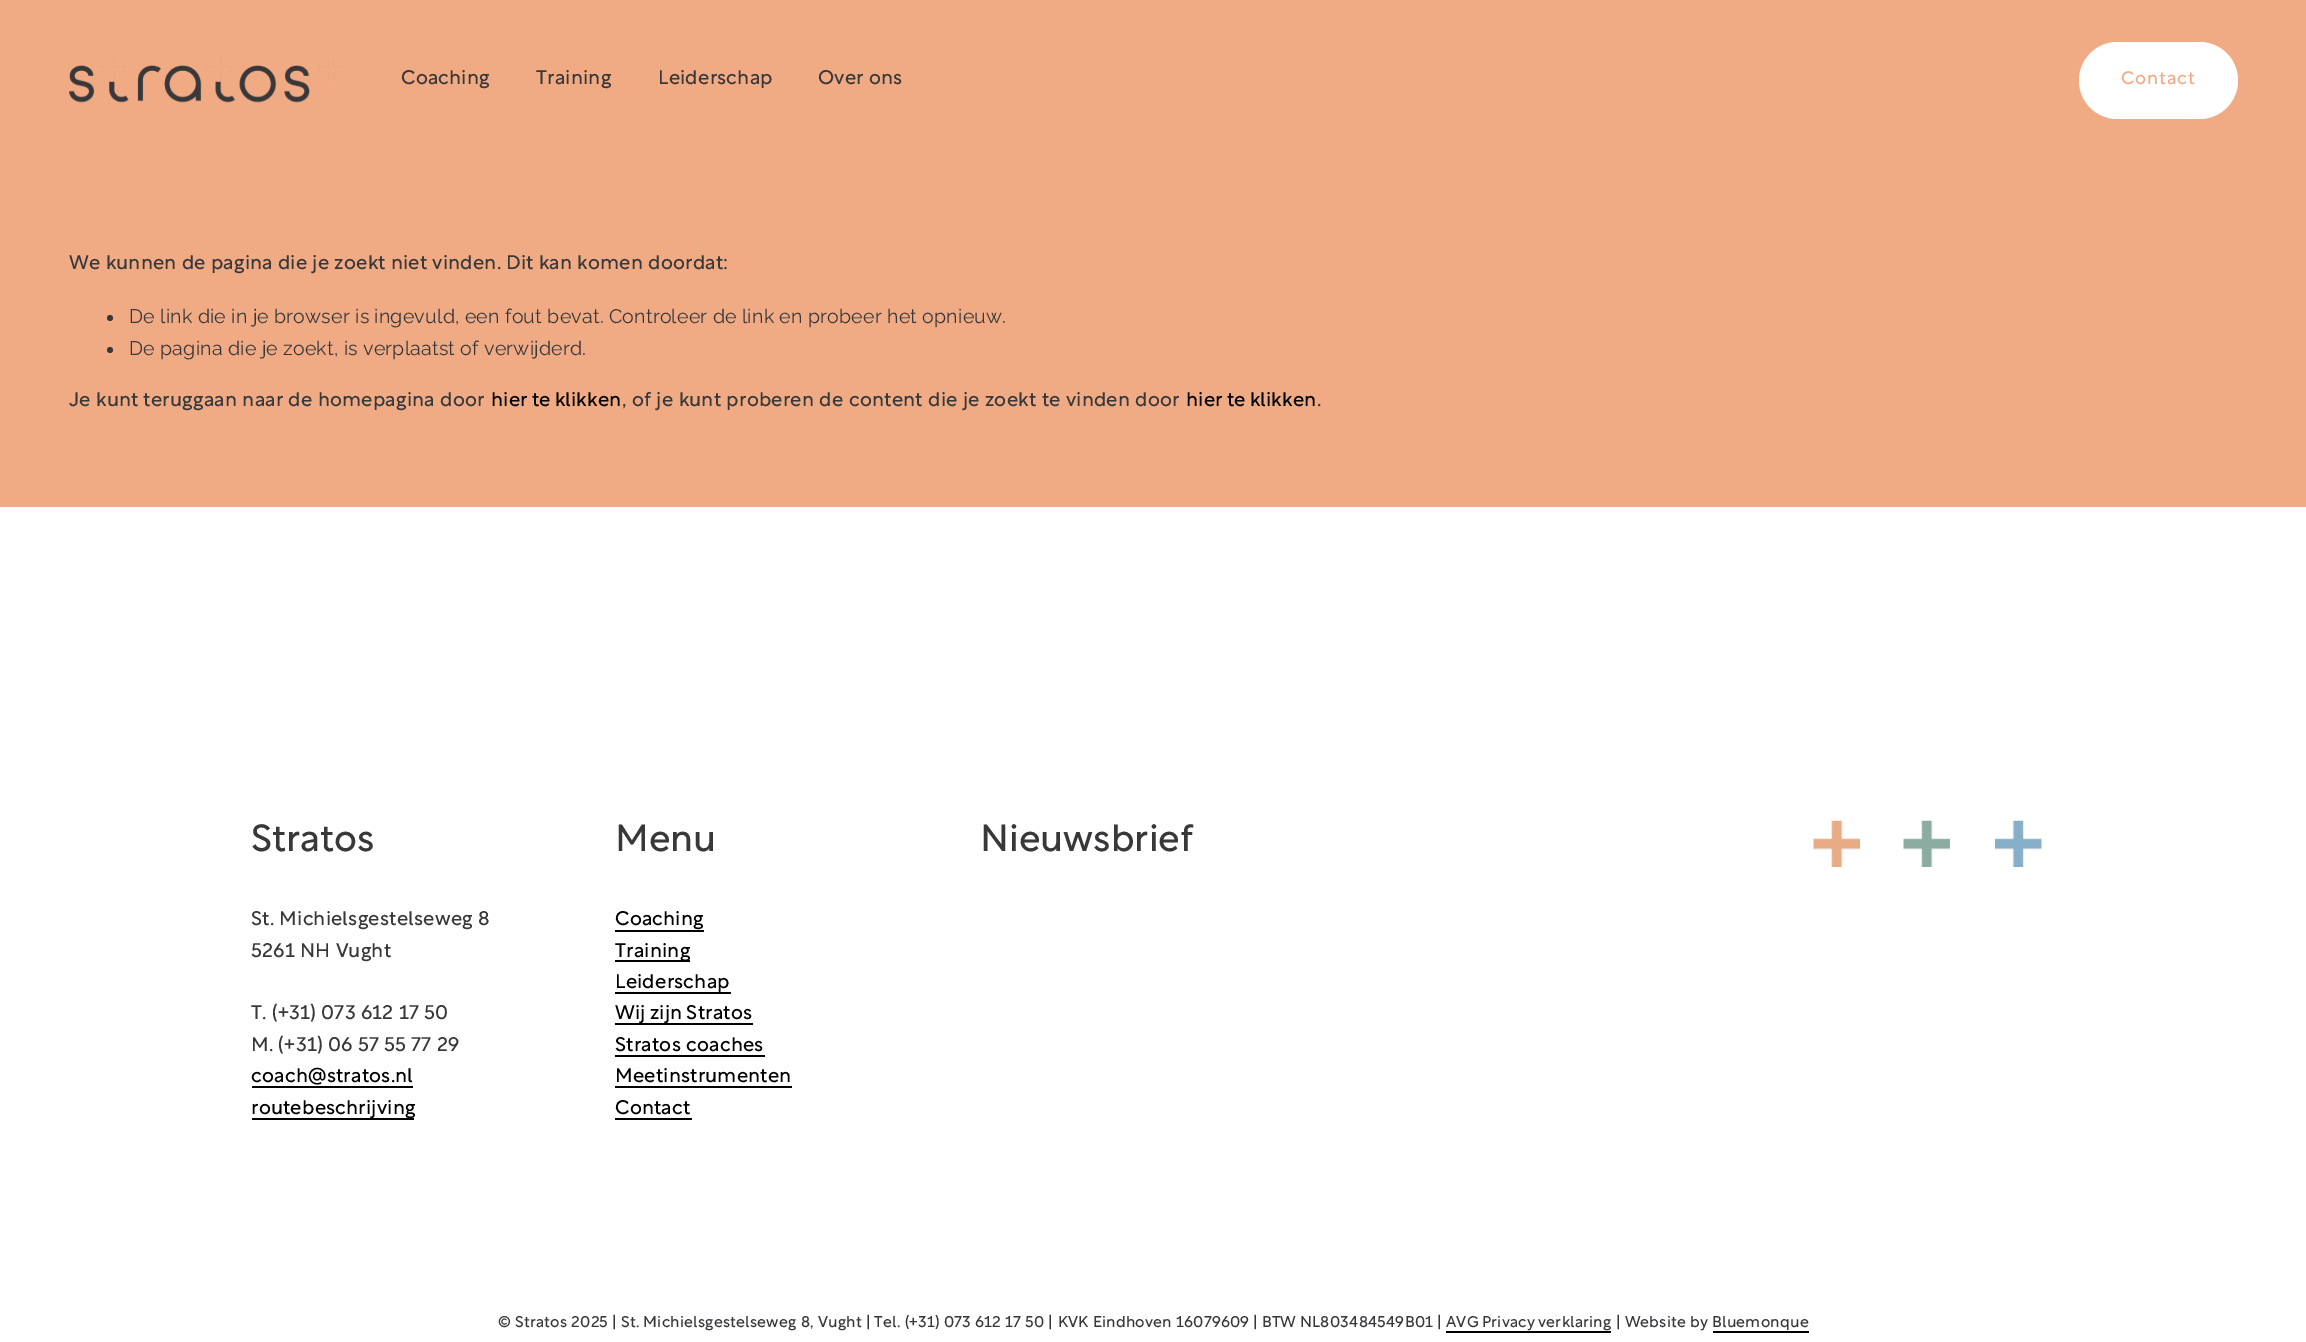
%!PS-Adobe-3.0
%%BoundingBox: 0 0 2306 1342
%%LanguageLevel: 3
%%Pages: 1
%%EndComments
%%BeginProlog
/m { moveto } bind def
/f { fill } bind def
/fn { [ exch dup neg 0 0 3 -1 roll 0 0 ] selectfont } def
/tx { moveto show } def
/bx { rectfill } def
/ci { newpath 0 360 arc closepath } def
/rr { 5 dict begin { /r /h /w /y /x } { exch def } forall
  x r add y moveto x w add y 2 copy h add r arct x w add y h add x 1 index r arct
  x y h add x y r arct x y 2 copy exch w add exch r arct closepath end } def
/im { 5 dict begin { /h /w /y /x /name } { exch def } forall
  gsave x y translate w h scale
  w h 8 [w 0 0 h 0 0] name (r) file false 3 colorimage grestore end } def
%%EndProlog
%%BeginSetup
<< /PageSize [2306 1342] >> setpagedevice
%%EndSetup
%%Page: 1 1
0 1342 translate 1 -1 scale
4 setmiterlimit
0.945 0.671 0.518 setrgbcolor
0 0 2306 1342 bx
(image0.raw) 69 57 273 46 im
/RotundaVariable-Regular 19.6 fn
0.22 0.22 0.231 setrgbcolor
401 84 m 0.2 0 (Coaching) ashow
536 84 m 0.2 0 (Training) ashow
658 84 m 0.2 0 (Leiderschap) ashow
818 84 m 0.2 0 (Over ons) ashow
1 setgray
2079 42 159 77 38.5 rr f
/RotundaVariable-Regular 18 fn
0.945 0.671 0.518 setrgbcolor
2121 84 m 1 0 (Contact) ashow
/RotundaVariable-Regular 19.6 fn
0.22 0.22 0.231 setrgbcolor
69 269 m 0.2 0 (We kunnen de pagina die je zoekt niet vinden. Dit kan komen doordat:) ashow
110 318 3 ci f
/Raleway-Regular 19.6 fn
129 323 m 0.2 0 (De link die in je browser is ingevuld, een fout bevat. Controleer de link en probeer het opnieuw.) ashow
110 350 3 ci f
129 355 m 0.2 0 (De pagina die je zoekt, is verplaatst of verwijderd.) ashow
/RotundaVariable-Regular 19.6 fn
69 406 m 0.2 0 (Je kunt teruggaan naar de homepagina door) ashow
0 setgray
491 406 m -1 0 32 0.2 0 (hier te klikken) awidthshow
0.22 0.22 0.231 setrgbcolor
622 406 m 0.25 0 32 0.2 0 (, of je kunt proberen de content die je zoekt te vinden door) awidthshow
0 setgray
1186 406 m -1 0 32 0.2 0 (hier te klikken) awidthshow
0.22 0.22 0.231 setrgbcolor
1317 406 m 0.2 0 (.) ashow
1 setgray
0 507 2306 835 bx
/RotundaVariable-Regular 37.5 fn
0.22 0.22 0.231 setrgbcolor
(Stratos) 251 851 tx
/RotundaVariable-Regular 19.6 fn
251 925 m 0.2 0 (St. Michielsgestelseweg 8) ashow
251 957 m 0.2 0 (5261 NH Vught) ashow
251 1019 m 0.2 0 (T. \(+31\) 073 612 17 50) ashow
251 1051 m 0.2 0 (M. \(+31\) 06 57 55 77 29) ashow
0 setgray
251 1082 m 0.2 0 (coach@stratos.nl) ashow
252 1086 161 2 bx
252 1118 162 2 bx
251 1114 m 0.2 0 (routebeschrijving) ashow
/RotundaVariable-Regular 37.5 fn
0.22 0.22 0.231 setrgbcolor
(Menu) 615 851 tx
/RotundaVariable-Regular 19.6 fn
0 setgray
615 925 m 0.2 0 (Coaching) ashow
615 930 89 2 bx
615 960 75 2 bx
615 957 m 0.2 0 (Training) ashow
615 988 m 0.2 0 (Leiderschap) ashow
615 992 116 2 bx
615 1023 138 2 bx
615 1019 m -1 0 32 0.2 0 (Wij zijn Stratos) awidthshow
615 1051 m 0.2 0 (Stratos coaches) ashow
615 1055 150 2 bx
615 1082 m 0.2 0 (Meetinstrumenten) ashow
615 1086 177 2 bx
615 1114 m 0.2 0 (Contact) ashow
615 1118 77 2 bx
/RotundaVariable-Regular 37.5 fn
0.22 0.22 0.231 setrgbcolor
(Nieuwsbrief) 980 851 tx
(image1.raw) 1813 820 47 47 im
(image2.raw) 1903 820 47 47 im
(image3.raw) 1995 820 47 47 im
/RotundaVariable-Regular 15.45 fn
498 1327 m 0.2 0 (© Stratos 2025 | St. Michielsgestelseweg 8, Vught | Tel. \(+31\) 073 612 17 50 |) ashow
1058 1327 m -0.25 0 32 0.2 0 (KVK Eindhoven 16079609 | BTW NL803484549B01 |) awidthshow
1446 1327 m -1 0 32 0.2 0 (AVG Privacy verklaring) awidthshow
0 setgray
1446 1331 165 2 bx
0.22 0.22 0.231 setrgbcolor
1616 1327 m 0.2 0 (| Website by) ashow
1712 1327 m 0.2 0 (Bluemonque) ashow
0 setgray
1713 1331 96 2 bx
showpage
%%EOF
